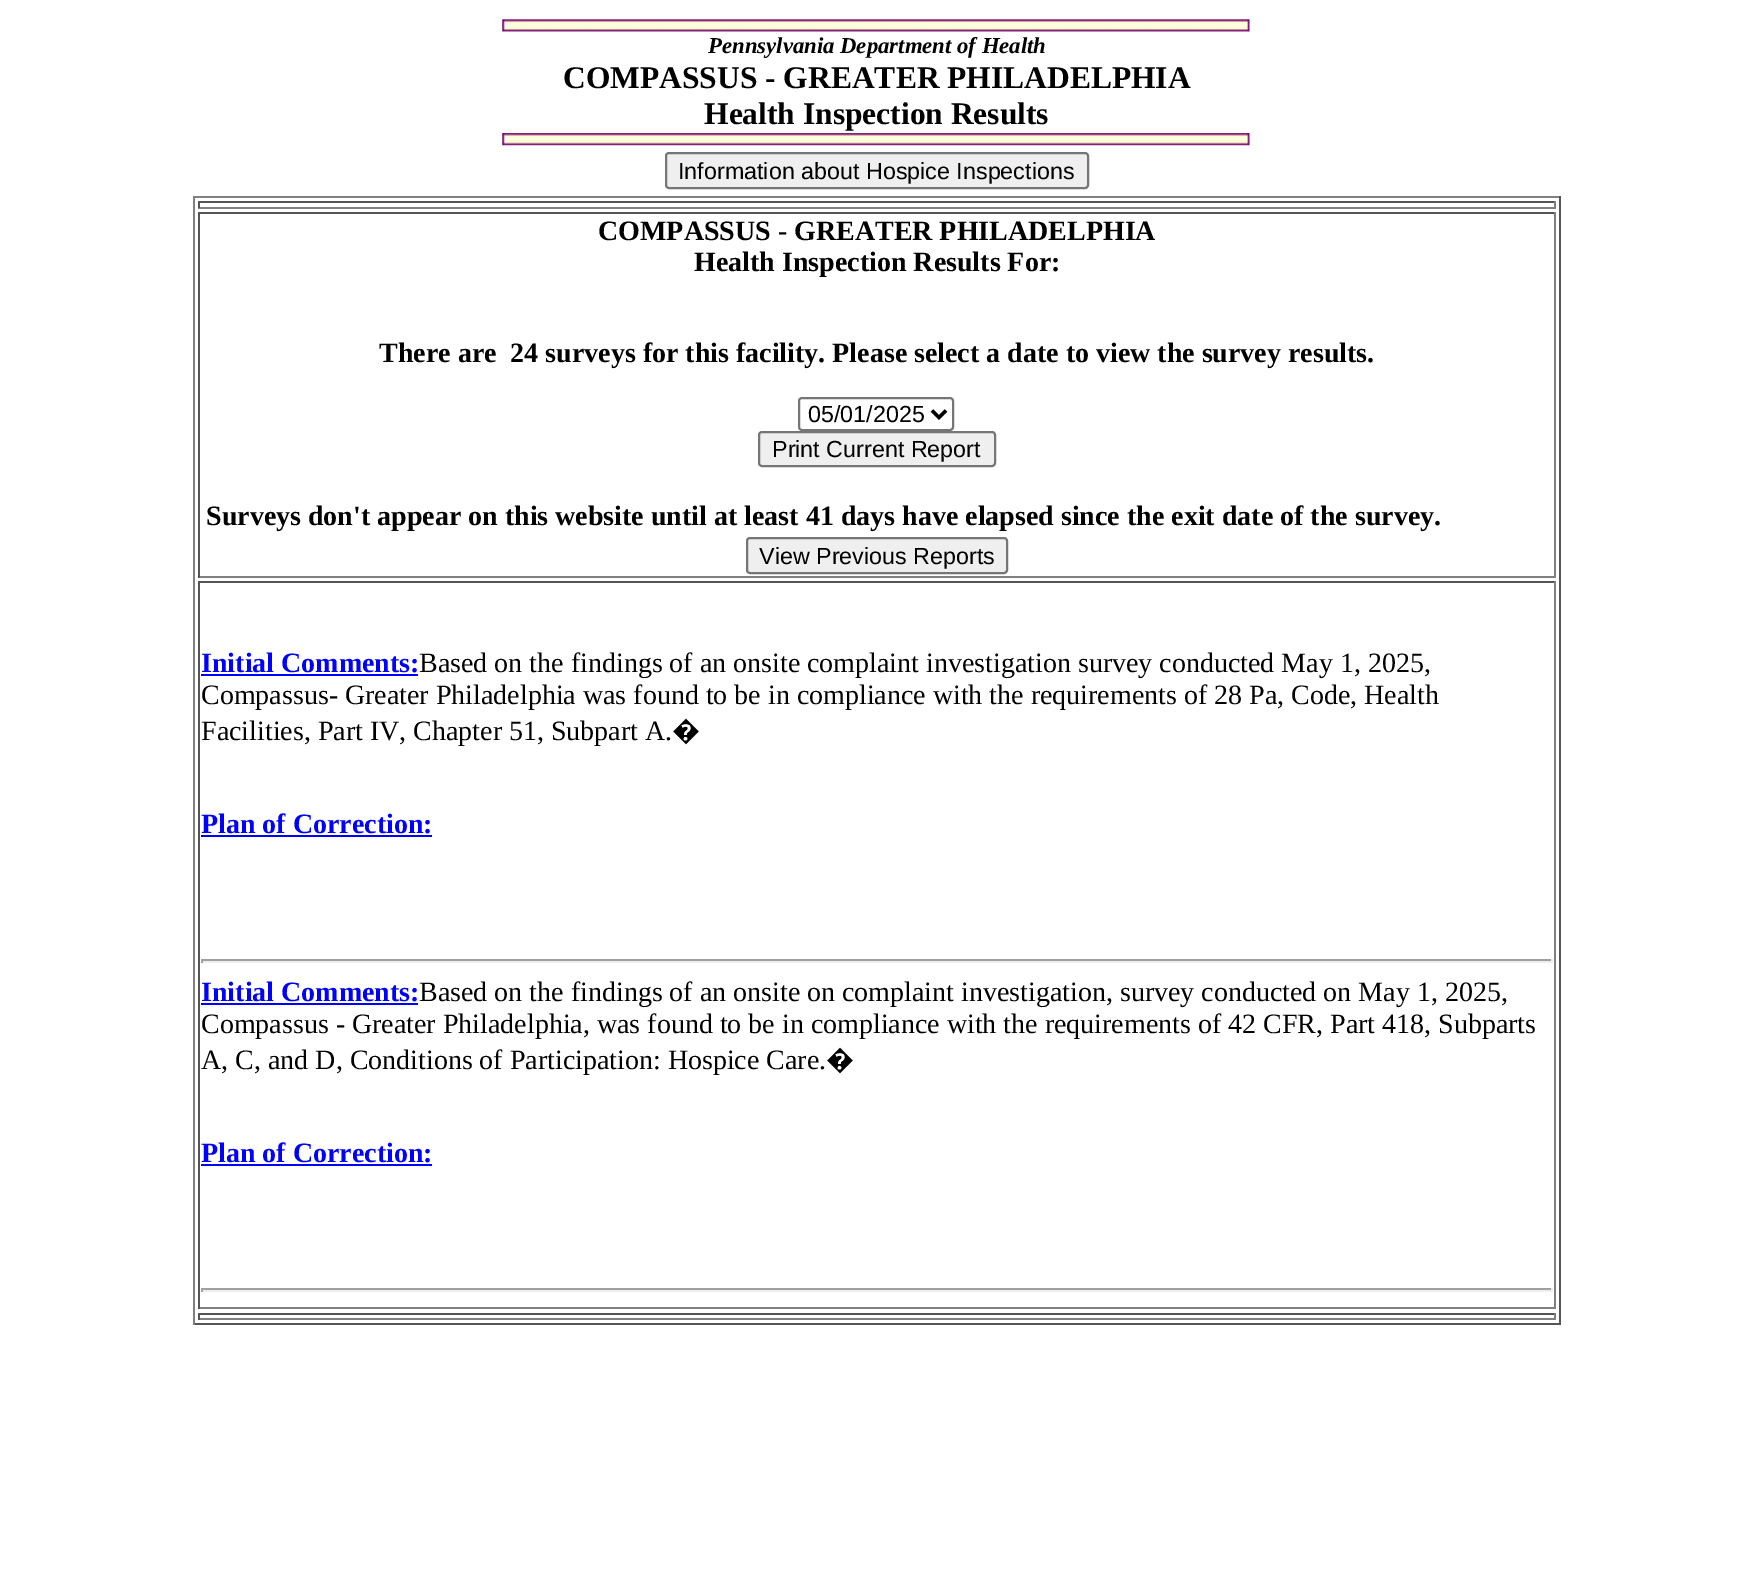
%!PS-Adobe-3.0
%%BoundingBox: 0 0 1752 1587
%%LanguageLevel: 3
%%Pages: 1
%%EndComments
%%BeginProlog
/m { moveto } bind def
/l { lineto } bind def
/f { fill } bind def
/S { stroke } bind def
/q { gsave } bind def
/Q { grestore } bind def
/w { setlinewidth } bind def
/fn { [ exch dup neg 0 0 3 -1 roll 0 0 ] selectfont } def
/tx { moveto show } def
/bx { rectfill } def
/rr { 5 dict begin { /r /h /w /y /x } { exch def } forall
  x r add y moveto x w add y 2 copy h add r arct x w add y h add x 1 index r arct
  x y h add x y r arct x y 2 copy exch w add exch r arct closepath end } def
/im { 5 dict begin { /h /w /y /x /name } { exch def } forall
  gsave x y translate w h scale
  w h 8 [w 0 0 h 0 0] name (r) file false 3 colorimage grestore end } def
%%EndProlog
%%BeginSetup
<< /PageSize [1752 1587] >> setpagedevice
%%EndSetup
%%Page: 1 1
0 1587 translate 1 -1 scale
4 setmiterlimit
1 setgray
0 0 1752 1587 bx
(image0.raw) 502 19 748 13 im
/LiberationSerif-BoldItalic 22.75 fn
0 setgray
(Pennsylvania Department of Health) 708 53 tx
/LiberationSerif-Bold 31.5 fn
(COMPASSUS - GREATER PHILADELPHIA) 563 88 tx
(Health Inspection Results) 704 124 tx
(image1.raw) 502 133 748 13 im
0.937 setgray
666 153 422 35 3 rr q f Q
0.463 setgray
2 w
S
/LiberationSans-Regular 23.3 fn
0 setgray
(Information about Hospice Inspections) 678 179 tx
0.502 setgray
193 196 1368 2 bx
0.333 setgray
1559 196 2 1129 bx
193 1323 1368 2 bx
0.502 setgray
193 196 2 1129 bx
0.333 setgray
198 201 1358 2 bx
0.502 setgray
1554 201 2 7 bx
198 207 1358 2 bx
0.333 setgray
198 201 2 7 bx
198 212 1358 2 bx
0.502 setgray
1554 212 2 366 bx
198 576 1358 2 bx
0.333 setgray
198 212 2 366 bx
/LiberationSerif-Bold 28 fn
0 setgray
(COMPASSUS - GREATER PHILADELPHIA) 598 240 tx
(Health Inspection Results For:) 694 271 tx
(There are  24 surveys for this facility. Please select a date to view the survey results.) 379 362 tx
0.463 setgray
799 398 154 32 3 rr S
0 setgray
3.5 w
932 410.5 m 939 417.5 l 946 410.5 l S
/LiberationSans-Regular 23.3 fn
(05/01/2025) 808 422 tx
0.937 setgray
759 432 236 34 3 rr q f Q
0.463 setgray
2 w
S
0 setgray
(Print Current Report) 772 457 tx
/LiberationSerif-Bold 28 fn
(Surveys don't appear on this website until at least 41 days have elapsed since the exit date of the survey.) 206 525 tx
0.937 setgray
747 538 260 35 3 rr q f Q
0.463 setgray
S
/LiberationSans-Regular 23.3 fn
0 setgray
(View Previous Reports) 759 564 tx
0.333 setgray
198 581 1358 2 bx
0.502 setgray
1554 581 2 728 bx
198 1307 1358 2 bx
0.333 setgray
198 581 2 728 bx
/LiberationSerif-Bold 28 fn
0 0 1 setrgbcolor
(Initial Comments:) 201 672 tx
201 674 217 2 bx
/LiberationSerif-Regular 28 fn
0 setgray
(Based on the findings of an onsite complaint investigation survey conducted May 1, 2025,) 419 672 tx
(Compassus- Greater Philadelphia was found to be in compliance with the requirements of 28 Pa, Code, Health) 201 704 tx
(Facilities, Part IV, Chapter 51, Subpart A.) 201 740 tx
/NotoSans-Regular 28 fn
(�) 672 740 tx
/LiberationSerif-Bold 28 fn
0 0 1 setrgbcolor
(Plan of Correction:) 201 833 tx
201 835 231 2 bx
0.624 setgray
201 959 1351 2 bx
0.933 setgray
1551 959 2 4 bx
201 961 1351 2 bx
0.624 setgray
201 959 2 4 bx
0 0 1 setrgbcolor
(Initial Comments:) 201 1001 tx
201 1003 217 2 bx
/LiberationSerif-Regular 28 fn
0 setgray
(Based on the findings of an onsite on complaint investigation, survey conducted on May 1, 2025,) 419 1001 tx
(Compassus - Greater Philadelphia, was found to be in compliance with the requirements of 42 CFR, Part 418, Subparts) 201 1033 tx
(A, C, and D, Conditions of Participation: Hospice Care.) 201 1069 tx
/NotoSans-Regular 28 fn
(�) 826 1069 tx
/LiberationSerif-Bold 28 fn
0 0 1 setrgbcolor
(Plan of Correction:) 201 1162 tx
201 1164 231 2 bx
0.624 setgray
201 1288 1351 2 bx
0.933 setgray
1551 1288 2 4 bx
201 1290 1351 2 bx
0.624 setgray
201 1288 2 4 bx
0.333 setgray
198 1313 1358 2 bx
0.502 setgray
1554 1313 2 7 bx
198 1318 1358 2 bx
0.333 setgray
198 1313 2 7 bx
showpage
%%EOF
